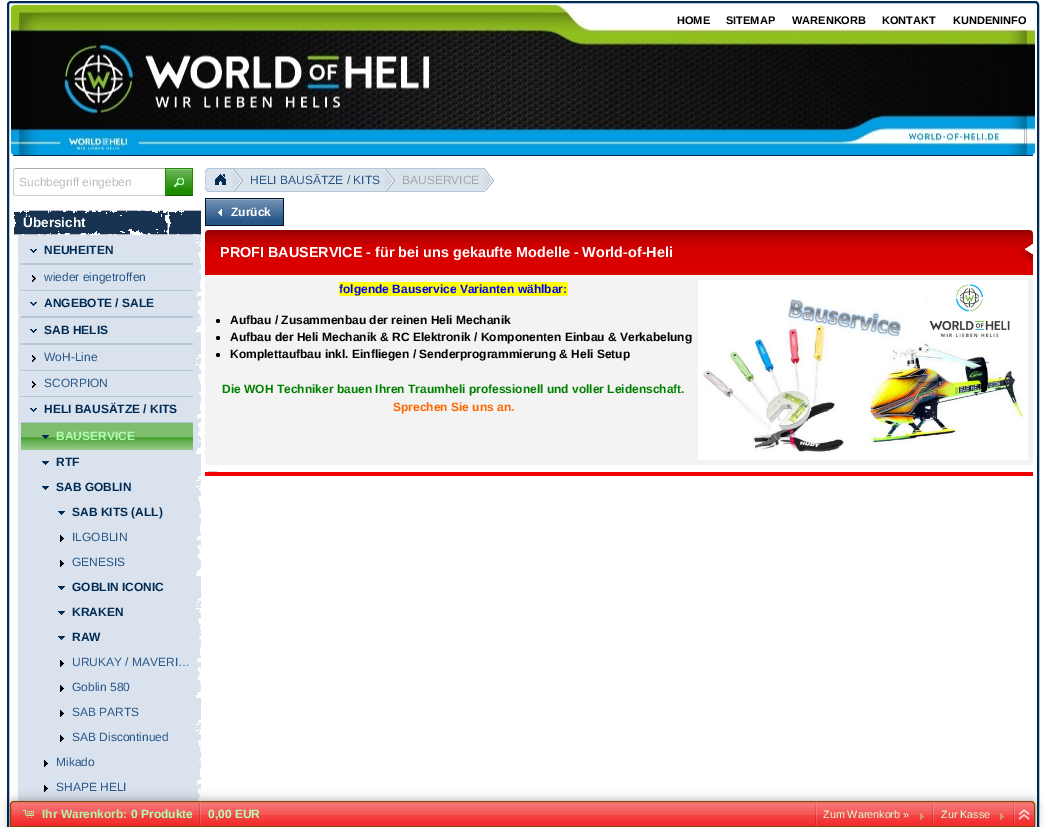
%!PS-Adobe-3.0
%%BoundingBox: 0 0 1045 827
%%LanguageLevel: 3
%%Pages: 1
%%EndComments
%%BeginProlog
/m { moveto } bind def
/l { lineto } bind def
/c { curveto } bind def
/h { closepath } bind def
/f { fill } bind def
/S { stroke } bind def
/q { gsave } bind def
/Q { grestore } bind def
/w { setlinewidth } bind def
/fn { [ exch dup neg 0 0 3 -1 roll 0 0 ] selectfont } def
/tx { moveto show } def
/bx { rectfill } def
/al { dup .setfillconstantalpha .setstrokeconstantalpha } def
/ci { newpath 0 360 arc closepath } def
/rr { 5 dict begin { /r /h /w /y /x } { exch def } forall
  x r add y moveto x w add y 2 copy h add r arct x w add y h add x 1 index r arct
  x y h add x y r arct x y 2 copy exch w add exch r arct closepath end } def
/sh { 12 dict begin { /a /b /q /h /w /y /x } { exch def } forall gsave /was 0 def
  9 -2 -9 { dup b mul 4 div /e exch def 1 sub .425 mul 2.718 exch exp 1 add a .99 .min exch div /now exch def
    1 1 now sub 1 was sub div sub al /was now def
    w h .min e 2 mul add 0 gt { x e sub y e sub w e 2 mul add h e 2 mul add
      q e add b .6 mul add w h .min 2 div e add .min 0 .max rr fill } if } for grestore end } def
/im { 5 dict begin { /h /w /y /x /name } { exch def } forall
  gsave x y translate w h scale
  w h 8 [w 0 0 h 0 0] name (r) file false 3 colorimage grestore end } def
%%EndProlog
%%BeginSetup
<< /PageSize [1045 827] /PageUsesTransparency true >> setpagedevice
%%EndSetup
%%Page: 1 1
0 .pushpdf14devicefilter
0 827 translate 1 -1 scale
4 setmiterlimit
1 setgray
0 0 1045 827 bx
0 0.169 0.333 setrgbcolor
2 w
8 2 1030 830 3 rr S
(image0.raw) 11 5 1024 150 im
13 155 1020 1 bx
/LiberationSans-Bold 11 fn
0 setgray
(HOME) 677 24 tx
(SITEMAP) 726 24 tx
(WARENKORB) 792 24 tx
(KONTAKT) 882 24 tx
(KUNDENINFO) 953 24 tx
0.667 setgray
16 168 m 14 169 l 15 170 l 15 169 l 165 169 l 165 168 l h f
0.8 setgray
165 196 m 165 195 l 15 195 l 15 194 l 14 195 l 16 196 l h f
13 171 m 13 193 l 13 194 13 195 14 195 c 14.5 194.5 l 14 194 14 193.5 14 193 c 14 171 l 14 170.5 14 170 14.5 169.5 c 14 169 l 13 169 13 170 13 171 c h f
/LiberationSans-Regular 11.9 fn
0.733 setgray
(Suchbegriff eingeben) 19 186 tx
0.114 0.545 0 setrgbcolor
166 170 26 25 bx
(image1.raw) 166 170 26 19 im
0.6 0.792 0.549 setrgbcolor
166 169 26 1 bx
0.114 0.545 0 setrgbcolor
165 168 28 1 bx
192 168 1 28 bx
0.067 0.325 0 setrgbcolor
165 195 28 1 bx
0.114 0.545 0 setrgbcolor
165 168 1 28 bx
(image2.raw) 174 178 10 9 im
(image3.raw) 14 210 187 25 im
/LiberationSans-Bold 13.5 fn
1 setgray
(Übersicht) 23 227 tx
(image4.raw) 196 235 5 592 im
0.855 0.89 0.929 setrgbcolor
18 235 178 592 bx
0.706 0.78 0.855 setrgbcolor
21 263 172 2 bx
(image5.raw) 30 249 7 4 im
/LiberationSans-Bold 12 fn
0 0.169 0.333 setrgbcolor
(NEUHEITEN) 44 254 tx
0.706 0.78 0.855 setrgbcolor
21 290 172 1 bx
(image6.raw) 32 275 4 7 im
/LiberationSans-Regular 12 fn
0.153 0.337 0.537 setrgbcolor
(wieder eingetroffen) 44 281 tx
0.706 0.78 0.855 setrgbcolor
21 316 172 2 bx
(image5.raw) 30 302 7 4 im
/LiberationSans-Bold 12 fn
0 0.169 0.333 setrgbcolor
(ANGEBOTE / SALE) 44 307 tx
0.706 0.78 0.855 setrgbcolor
21 343 172 2 bx
(image5.raw) 30 329 7 4 im
0 0.169 0.333 setrgbcolor
(SAB HELIS) 44 334 tx
0.706 0.78 0.855 setrgbcolor
21 370 172 1 bx
(image6.raw) 32 355 4 7 im
/LiberationSans-Regular 12 fn
0.153 0.337 0.537 setrgbcolor
(WoH-Line) 44 361 tx
0.706 0.78 0.855 setrgbcolor
21 396 172 1 bx
(image6.raw) 32 381 4 7 im
0.153 0.337 0.537 setrgbcolor
(SCORPION) 44 387 tx
0.706 0.78 0.855 setrgbcolor
21 422 172 1 bx
(image5.raw) 30 408 7 4 im
/LiberationSans-Bold 12 fn
0 0.169 0.333 setrgbcolor
(HELI BAUSÄTZE / KITS) 44 413 tx
0.114 0.545 0 setrgbcolor
21 423 172 27 bx
(image7.raw) 21 423 172 27 im
(image8.raw) 42 435 7 4 im
0.69 1 0.69 setrgbcolor
(BAUSERVICE) 56 440 tx
(image9.raw) 42 461 7 4 im
0 0.169 0.333 setrgbcolor
(RTF) 56 466 tx
(image9.raw) 42 486 7 4 im
(SAB GOBLIN) 56 491 tx
(image9.raw) 58 511 7 4 im
(SAB KITS \(ALL\)) 72 516 tx
(image10.raw) 60 535 4 7 im
/LiberationSans-Regular 12 fn
0.153 0.337 0.537 setrgbcolor
(ILGOBLIN) 72 541 tx
(image10.raw) 60 560 4 7 im
(GENESIS) 72 566 tx
(image9.raw) 58 586 7 4 im
/LiberationSans-Bold 12 fn
0 0.169 0.333 setrgbcolor
(GOBLIN ICONIC) 72 591 tx
(image9.raw) 58 611 7 4 im
(KRAKEN) 72 616 tx
(image9.raw) 58 636 7 4 im
(RAW) 72 641 tx
(image10.raw) 60 660 4 7 im
/LiberationSans-Regular 12 fn
0.153 0.337 0.537 setrgbcolor
(URUKAY / MAVERI…) 72 666 tx
(image10.raw) 60 685 4 7 im
(Goblin 580) 72 691 tx
(image10.raw) 60 710 4 7 im
(SAB PARTS) 72 716 tx
(image10.raw) 60 735 4 7 im
(SAB Discontinued) 72 741 tx
(image10.raw) 44 760 4 7 im
(Mikado) 56 766 tx
(image10.raw) 44 785 4 7 im
(SHAPE HELI) 56 791 tx
(image10.raw) 44 810 4 7 im
0.855 0.89 0.925 setrgbcolor
209 169 m 485 169 l 485 191 l 209 191 l 207.5 191 206 189.5 206 188 c 206 172 l 206 170.5 207.5 169 209 169 c h f
0.706 0.78 0.855 setrgbcolor
209 168 m 485 168 l 485 192 l 209 192 l 207 192 205 190 205 188 c 205 172 l 205 170 207 168 209 168 c h 209 169 m 485 169 l 485 191 l 209 191 l 204 191 206 183 206 180 c 206 177 204 169 209 169 c h eofill
(image11.raw) 232 169 11 22 im
(image12.raw) 215 174 11 11 im
(image11.raw) 384 169 11 22 im
0.153 0.337 0.537 setrgbcolor
(HELI BAUSÄTZE / KITS) 250 184 tx
(image13.raw) 483 169 11 22 im
0.647 setgray
(BAUSERVICE) 402 184 tx
0.153 0.337 0.537 setrgbcolor
206 200 77 25 bx
(image14.raw) 206 200 77 20 im
0.62 0.702 0.792 setrgbcolor
206 199 77 1 bx
0 0.086 0.165 setrgbcolor
205 198 79 1 bx
283 198 1 28 bx
0 0.067 0.125 setrgbcolor
205 225 79 1 bx
0 0.086 0.165 setrgbcolor
205 198 1 28 bx
(image15.raw) 218 209 4 7 im
/LiberationSans-Bold 12 fn
1 setgray
(Zurück) 231 216 tx
(image16.raw) 205 230 828 45 im
/LiberationSans-Bold 14.4 fn
(PROFI BAUSERVICE - für bei uns gekaufte Modelle - World-of-Heli) 220 257 tx
0.953 setgray
205 275 m 1033 275 l 1033 461 l 1033 463 1031 465 1029 465 c 209 465 l 207 465 205 463 205 461 c h f
1 1 0 setrgbcolor
339 282 229 14 bx
/LiberationSans-Bold 12 fn
0 0 1 setrgbcolor
(folgende Bauservice Varianten wählbar:) 339 293 tx
(image17.raw) 698 280 330 180 im
0 setgray
218 321 2 ci f
(Aufbau / Zusammenbau der reinen Heli Mechanik) 230 324 tx
218 338 2 ci f
(Aufbau der Heli Mechanik & RC Elektronik / Komponenten Einbau & Verkabelung) 230 341 tx
218 355 2 ci f
(Komplettaufbau inkl. Einfliegen / Senderprogrammierung & Heli Setup) 230 358 tx
0 0.502 0 setrgbcolor
(Die WOH Techniker bauen Ihren Traumheli professionell und voller Leidenschaft.) 222 393 tx
1 0.4 0 setrgbcolor
(Sprechen Sie uns an.) 393 411 tx
(image18.raw) 208 471 9 1 im
0.941 0 0 setrgbcolor
205 472 828 4 bx
q
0 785 m 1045 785 l 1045 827 l 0 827 l h 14 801 m 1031 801 l 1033 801 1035 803 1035 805 c 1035 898 l 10 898 l 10 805 l 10 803 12 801 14 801 c h eoclip newpath
0 setgray
10 801 1025 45 4 5 0.37 sh
Q
0.93 al
14 801 m 1031 801 l 1033 801 1035 803 1035 805 c 1035 827 l 10 827 l 10 805 l 10 803 12 801 14 801 c h f
1 al
(image19.raw) 10 801 1025 26 im
0.93 al
0.525 0.275 0 setrgbcolor
1 w
14 801.5 m 1031 801.5 l 1033 801.5 1034.5 803 1034.5 805 c 1034.5 826.5 l 10.5 826.5 l 10.5 805 l 10.5 803 12 801.5 14 801.5 c h S
1 al
(image20.raw) 23 810 11 8 im
0.71 0.953 0.663 setrgbcolor
(Ihr Warenkorb:) 42 818 tx
0.69 1 0.69 setrgbcolor
(0 Produkte) 131 818 tx
(image21.raw) 199 802 2 24 im
0.714 1 0.714 setrgbcolor
(0,00 EUR) 208 818 tx
(image22.raw) 815 802 2 24 im
/LiberationSans-Regular 10.75 fn
0.855 1 0.855 setrgbcolor
(Zum Warenkorb ») 823 818 tx
(image23.raw) 920 813 4 7 im
(image22.raw) 932 802 2 24 im
(Zur Kasse) 941 818 tx
(image23.raw) 1000 813 4 7 im
(image22.raw) 1013 802 2 24 im
(image24.raw) 1019 809 11 11 im
.poppdf14devicefilter showpage
%%EOF
